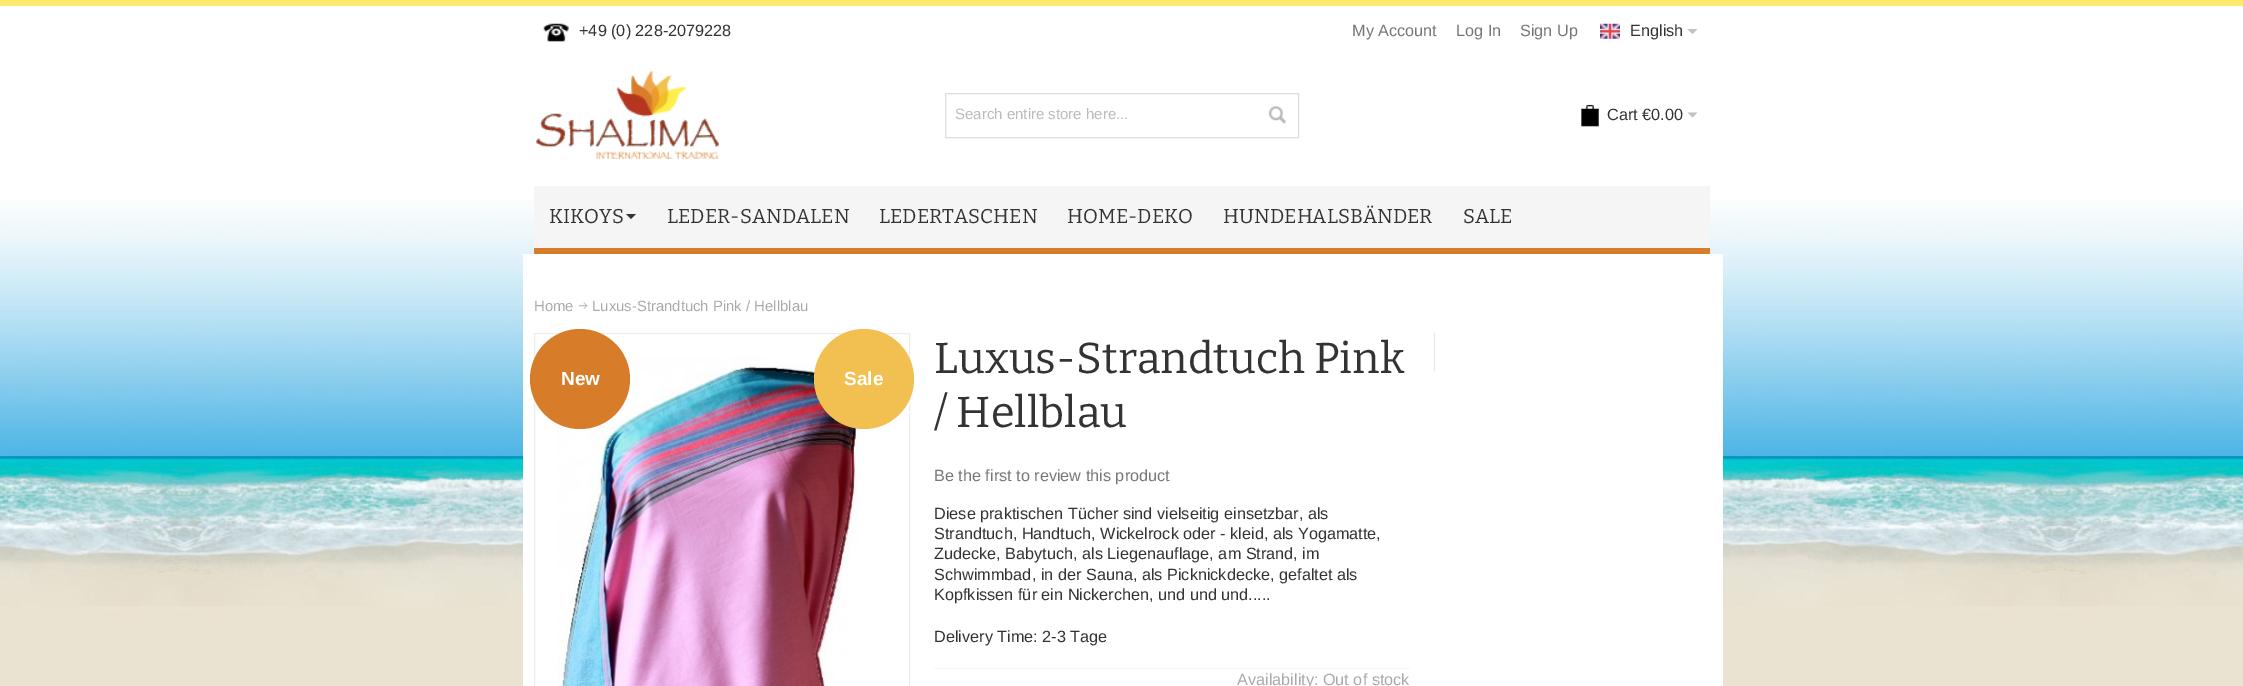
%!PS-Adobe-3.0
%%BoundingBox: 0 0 2243 686
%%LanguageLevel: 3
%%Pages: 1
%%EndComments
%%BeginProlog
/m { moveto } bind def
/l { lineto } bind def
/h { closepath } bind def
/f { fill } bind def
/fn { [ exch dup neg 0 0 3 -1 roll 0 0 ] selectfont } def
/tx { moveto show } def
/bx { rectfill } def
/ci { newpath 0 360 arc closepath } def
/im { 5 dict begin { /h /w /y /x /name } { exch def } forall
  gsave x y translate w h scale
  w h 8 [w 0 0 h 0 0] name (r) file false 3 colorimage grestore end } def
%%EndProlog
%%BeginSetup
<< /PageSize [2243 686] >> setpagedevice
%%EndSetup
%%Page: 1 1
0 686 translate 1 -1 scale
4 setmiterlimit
1 setgray
0 0 2243 686 bx
(image0.raw) 0 200 2243 486 im
1 0.918 0.427 setrgbcolor
0 0 2243 6 bx
(image1.raw) 543 23 26 19 im
/LiberationSans-Regular 16.25 fn
0.2 setgray
(+49 \(0\) 228-2079228) 579 36 tx
0.467 setgray
(My Account) 1352 36 tx
(Log In) 1456 36 tx
(Sign Up) 1520 36 tx
(image2.raw) 1600 23 20 16 im
0.2 setgray
(English) 1630 36 tx
0.761 setgray
1687.5 29 m 1697.5 29 l 1692.5 34 l h f
(image3.raw) 536 71 183 88 im
0.867 setgray
945.5 93.5 353 44 rectstroke
/LiberationSans-Regular 15 fn
0.733 setgray
(Search entire store here...) 955 119 tx
(image4.raw) 1268 106 19 18 im
(image5.raw) 1581 104 18 23 im
/LiberationSans-Regular 16.25 fn
0.2 setgray
(Cart €0.00) 1607 120 tx
0.761 setgray
1687.5 112.5 m 1697.5 112.5 l 1692.5 117.5 l h f
0.961 setgray
534 186 1176 62 bx
0.843 0.49 0.165 setrgbcolor
534 248 1176 6 bx
/Bitter-Thin 20 fn
0.2 setgray
(KIKOYS) 549 223 tx
626 214 m 636 214 l 631 219 l h f
(LEDER-SANDALEN) 667 223 tx
(LEDERTASCHEN) 879 223 tx
(HOME-DEKO) 1067 223 tx
(HUNDEHALSBÄNDER) 1223 223 tx
(SALE) 1463 223 tx
1 setgray
523 254 1200 432 bx
/LiberationSans-Regular 14.9 fn
0.667 setgray
(Home) 534 311 tx
(image6.raw) 578 302 10 7 im
(Luxus-Strandtuch Pink / Hellblau) 592 311 tx
0.933 setgray
534.5 333.5 375 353 rectstroke
(image7.raw) 557 357 302 329 im
0.843 0.49 0.165 setrgbcolor
580 379 50 ci f
/LiberationSans-Bold 19 fn
1 setgray
(New) 561 385 tx
0.949 0.753 0.314 setrgbcolor
864 379 50 ci f
1 setgray
(Sale) 844 385 tx
/Bitter-Thin 43.25 fn
0.2 setgray
(Luxus-Strandtuch Pink) 934 373 tx
(/ Hellblau) 934 427 tx
/LiberationSans-Regular 16.25 fn
0.467 setgray
(Be the first to review this product) 934 481 tx
0.2 setgray
(Diese praktischen Tücher sind vielseitig einsetzbar, als) 934 519 tx
(Strandtuch, Handtuch, Wickelrock oder - kleid, als Yogamatte,) 934 539 tx
(Zudecke, Babytuch, als Liegenauflage, am Strand, im) 934 559 tx
(Schwimmbad, in der Sauna, als Picknickdecke, gefaltet als) 934 580 tx
(Kopfkissen für ein Nickerchen, und und und.....) 934 600 tx
(Delivery Time: 2-3 Tage) 934 642 tx
0.961 setgray
934 668 476 1 bx
0.667 setgray
(Availability: Out of stock) 1237 685 tx
0.898 setgray
1434 333 1 38 bx
showpage
%%EOF
